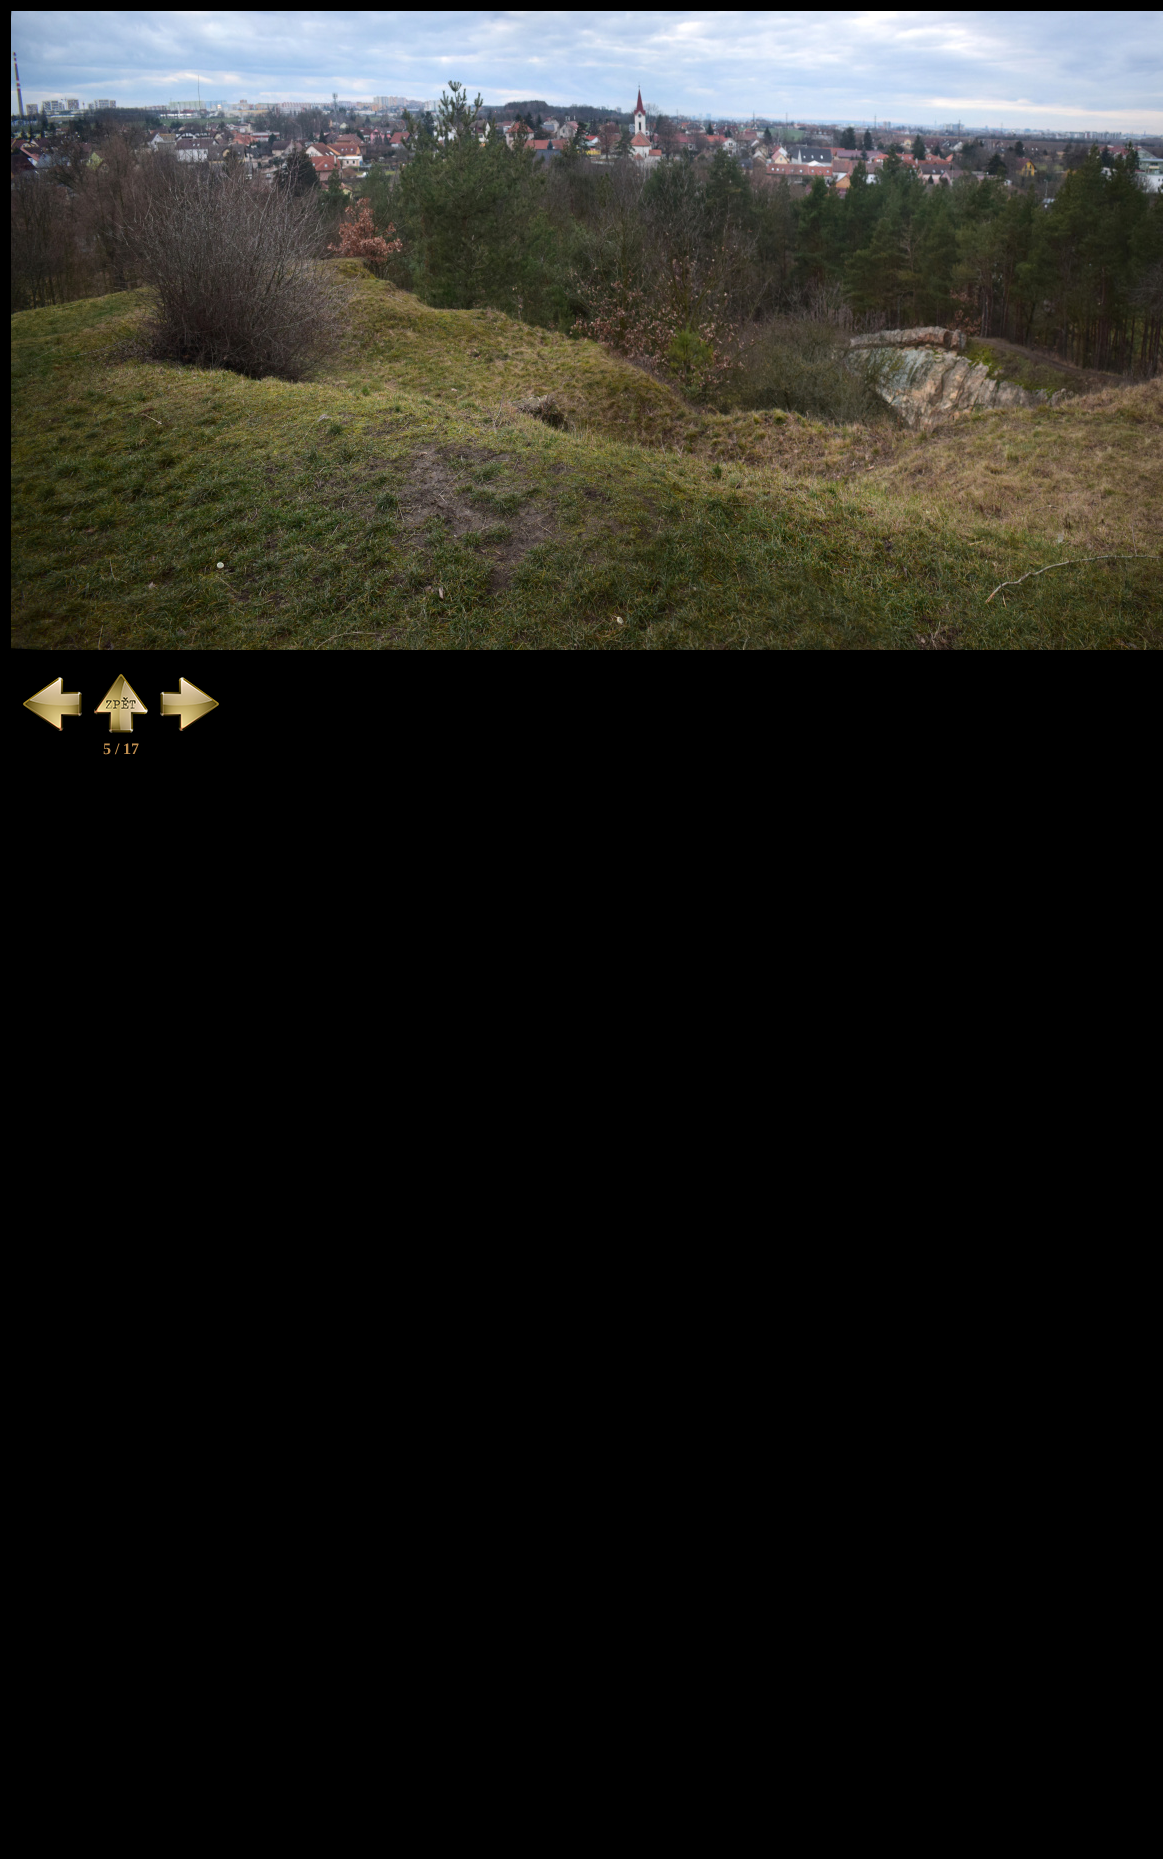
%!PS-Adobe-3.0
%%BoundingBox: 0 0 1163 1859
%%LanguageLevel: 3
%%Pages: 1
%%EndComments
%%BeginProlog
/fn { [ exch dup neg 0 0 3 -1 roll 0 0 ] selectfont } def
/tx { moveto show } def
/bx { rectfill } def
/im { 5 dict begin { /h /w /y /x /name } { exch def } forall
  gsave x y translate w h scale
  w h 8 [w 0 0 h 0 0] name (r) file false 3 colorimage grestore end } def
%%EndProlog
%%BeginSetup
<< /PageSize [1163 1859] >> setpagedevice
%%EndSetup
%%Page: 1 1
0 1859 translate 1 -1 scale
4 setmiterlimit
0 setgray
0 0 1163 1859 bx
(image0.raw) 11 11 1152 639 im
(image1.raw) 23 677 59 54 im
(image2.raw) 94 674 54 59 im
(image3.raw) 160 677 59 54 im
/LiberationSerif-Bold 16 fn
0.757 0.561 0.314 setrgbcolor
(5 / 17) 103 754 tx
showpage
%%EOF
